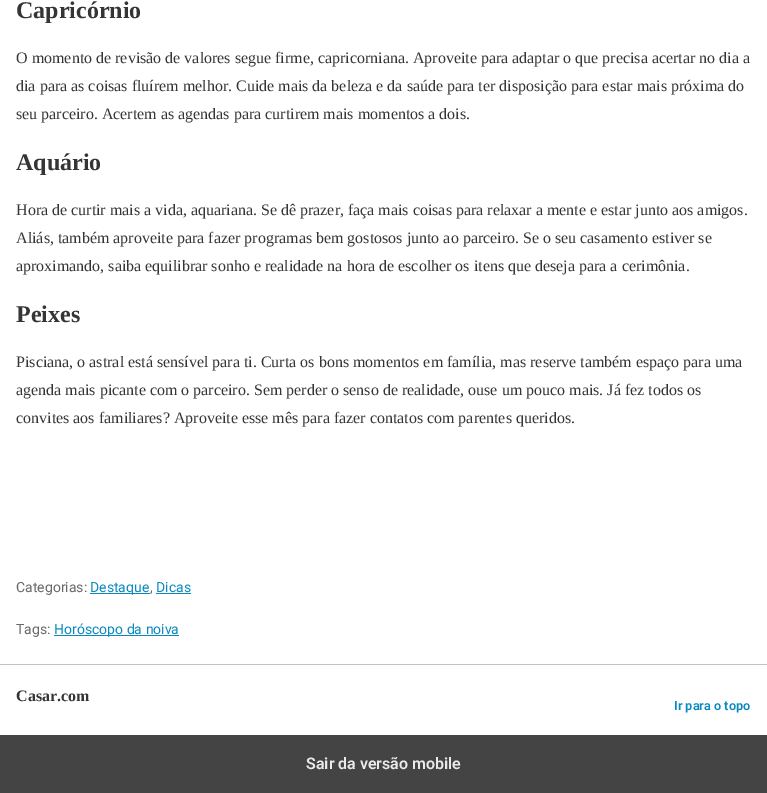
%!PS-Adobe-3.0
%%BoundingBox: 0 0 767 793
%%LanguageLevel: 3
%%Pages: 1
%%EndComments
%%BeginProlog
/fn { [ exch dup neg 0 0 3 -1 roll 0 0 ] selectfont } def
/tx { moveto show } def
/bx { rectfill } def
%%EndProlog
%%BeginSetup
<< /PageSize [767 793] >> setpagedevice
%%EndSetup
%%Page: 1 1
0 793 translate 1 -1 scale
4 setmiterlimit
1 setgray
0 0 767 793 bx
/LiberationSerif-Bold 24 fn
0.208 setgray
(Capricórnio) 16 18 tx
/LiberationSerif-Regular 16 fn
(O momento de revisão de valores segue firme, capricorniana. Aproveite para adaptar o que precisa acertar no dia a) 16 63 tx
(dia para as coisas fluírem melhor. Cuide mais da beleza e da saúde para ter disposição para estar mais próxima do) 16 91 tx
(seu parceiro. Acertem as agendas para curtirem mais momentos a dois.) 16 119 tx
/LiberationSerif-Bold 24 fn
(Aquário) 16 170 tx
/LiberationSerif-Regular 16 fn
(Hora de curtir mais a vida, aquariana. Se dê prazer, faça mais coisas para relaxar a mente e estar junto aos amigos.) 16 215 tx
(Aliás, também aproveite para fazer programas bem gostosos junto ao parceiro. Se o seu casamento estiver se) 16 243 tx
(aproximando, saiba equilibrar sonho e realidade na hora de escolher os itens que deseja para a cerimônia.) 16 271 tx
/LiberationSerif-Bold 24 fn
(Peixes) 16 322 tx
/LiberationSerif-Regular 16 fn
(Pisciana, o astral está sensível para ti. Curta os bons momentos em família, mas reserve também espaço para uma) 16 367 tx
(agenda mais picante com o parceiro. Sem perder o senso de realidade, ouse um pouco mais. Já fez todos os) 16 395 tx
(convites aos familiares? Aproveite esse mês para fazer contatos com parentes queridos.) 16 423 tx
/Roboto-Regular 14 fn
0.412 setgray
(Categorias:) 16 592 tx
0.039 0.537 0.753 setrgbcolor
90 593 60 1 bx
(Destaque) 90 592 tx
0.412 setgray
(,) 150 592 tx
0.039 0.537 0.753 setrgbcolor
(Dicas) 156 592 tx
156 593 35 1 bx
0.412 setgray
(Tags:) 16 634 tx
0.039 0.537 0.753 setrgbcolor
54 635 125 1 bx
(Horóscopo da noiva) 54 634 tx
0.761 setgray
0 664 767 1 bx
/LiberationSerif-Bold 16 fn
0.208 setgray
(Casar.com) 16 701 tx
/Roboto-SemiBold 12.75 fn
0.039 0.537 0.753 setrgbcolor
(Ir para o topo) 674 710 tx
0.267 setgray
0 735 767 58 bx
/Roboto-SemiBold 16 fn
0.918 setgray
(Sair da versão mobile) 306 769 tx
showpage
%%EOF
